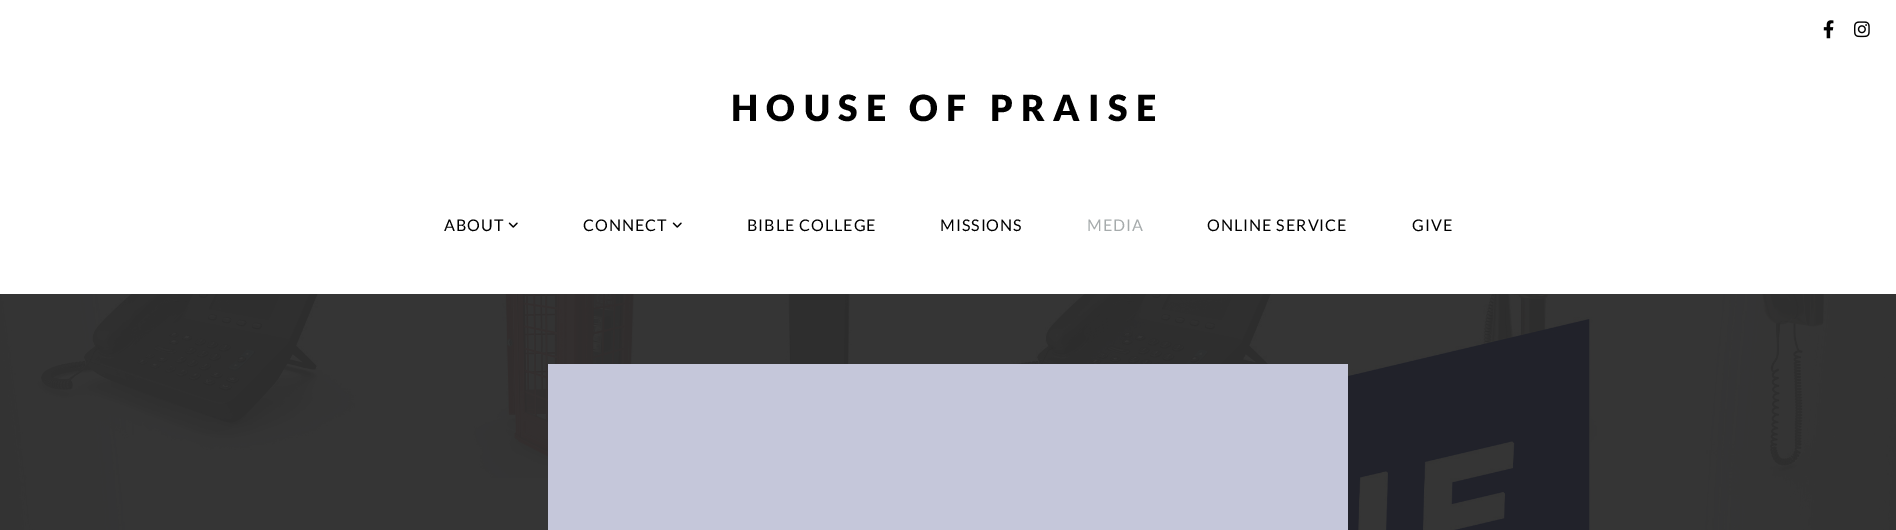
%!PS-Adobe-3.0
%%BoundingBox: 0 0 1896 530
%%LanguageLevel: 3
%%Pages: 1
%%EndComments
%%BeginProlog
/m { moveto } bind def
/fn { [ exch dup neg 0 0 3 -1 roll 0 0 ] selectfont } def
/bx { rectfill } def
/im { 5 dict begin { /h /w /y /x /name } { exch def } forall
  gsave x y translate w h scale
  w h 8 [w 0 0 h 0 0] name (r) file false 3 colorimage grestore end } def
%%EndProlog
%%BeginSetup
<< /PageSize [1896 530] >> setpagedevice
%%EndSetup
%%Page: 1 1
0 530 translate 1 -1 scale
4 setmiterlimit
1 setgray
0 0 1896 530 bx
(image0.raw) 1823 20 11 19 im
(image1.raw) 1854 21 16 17 im
/Lato-Black 36 fn
0 setgray
731 121 m 8.25 0 (HOUSE OF PRAISE) ashow
/Lato-Regular 16 fn
444 231 m 1 0 (ABOUT) ashow
(image2.raw) 508 222 10 6 im
583 231 m 1 0 (CONNECT) ashow
(image2.raw) 672 222 10 6 im
747 231 m 1 0 (BIBLE COLLEGE) ashow
940 231 m 1 0 (MISSIONS) ashow
0.651 0.671 0.675 setrgbcolor
1087 231 m 1 0 (MEDIA) ashow
0 setgray
1207 231 m 1 0 (ONLINE SERVICE) ashow
1412 231 m 1 0 (GIVE) ashow
(image3.raw) 0 294 1896 236 im
0.773 0.78 0.855 setrgbcolor
548 364 800 166 bx
showpage
%%EOF
